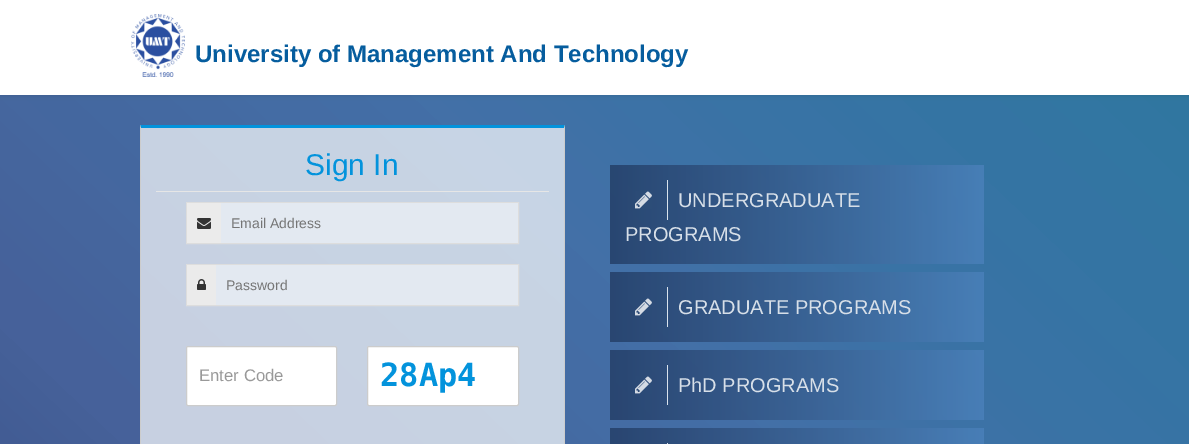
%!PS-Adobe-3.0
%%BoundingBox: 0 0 1189 444
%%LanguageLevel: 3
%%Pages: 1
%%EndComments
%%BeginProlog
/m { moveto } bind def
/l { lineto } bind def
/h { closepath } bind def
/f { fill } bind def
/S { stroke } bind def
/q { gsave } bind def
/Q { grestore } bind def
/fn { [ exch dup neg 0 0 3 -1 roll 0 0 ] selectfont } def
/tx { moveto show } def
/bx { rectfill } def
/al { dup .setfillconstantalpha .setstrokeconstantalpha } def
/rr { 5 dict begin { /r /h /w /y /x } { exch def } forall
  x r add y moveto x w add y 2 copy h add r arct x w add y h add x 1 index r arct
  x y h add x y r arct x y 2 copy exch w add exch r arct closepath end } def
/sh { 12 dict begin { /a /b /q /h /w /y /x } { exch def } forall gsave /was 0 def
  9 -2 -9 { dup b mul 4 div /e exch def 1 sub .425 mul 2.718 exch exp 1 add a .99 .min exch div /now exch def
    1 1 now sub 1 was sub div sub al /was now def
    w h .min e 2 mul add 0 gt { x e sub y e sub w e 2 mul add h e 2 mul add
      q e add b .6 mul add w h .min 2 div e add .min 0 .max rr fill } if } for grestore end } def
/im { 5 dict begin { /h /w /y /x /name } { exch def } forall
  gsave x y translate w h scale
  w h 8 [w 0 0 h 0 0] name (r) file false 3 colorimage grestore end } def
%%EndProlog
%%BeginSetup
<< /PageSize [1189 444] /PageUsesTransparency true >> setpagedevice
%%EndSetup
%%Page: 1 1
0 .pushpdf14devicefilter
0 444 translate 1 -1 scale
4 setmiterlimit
1 setgray
0 0 1189 444 bx
q 0 95 m 1189 95 l 1189 444 l 0 444 l h clip newpath
<< /ShadingType 2 /ColorSpace /DeviceRGB /Coords [31 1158 1158 -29] /Extend [true true] /Function << /FunctionType 3 /Domain [0 1] /Functions [<< /FunctionType 2 /Domain [0 1] /C0 [0.184 0.251 0.443] /C1 [0.208 0.282 0.482] /N 1 >> << /FunctionType 2 /Domain [0 1] /C0 [0.208 0.282 0.482] /C1 [0.231 0.314 0.522] /N 1 >> << /FunctionType 2 /Domain [0 1] /C0 [0.231 0.314 0.522] /C1 [0.251 0.349 0.565] /N 1 >> << /FunctionType 2 /Domain [0 1] /C0 [0.251 0.349 0.565] /C1 [0.275 0.38 0.604] /N 1 >> << /FunctionType 2 /Domain [0 1] /C0 [0.275 0.38 0.604] /C1 [0.271 0.4 0.62] /N 1 >> << /FunctionType 2 /Domain [0 1] /C0 [0.271 0.4 0.62] /C1 [0.267 0.42 0.639] /N 1 >> << /FunctionType 2 /Domain [0 1] /C0 [0.267 0.42 0.639] /C1 [0.263 0.439 0.655] /N 1 >> << /FunctionType 2 /Domain [0 1] /C0 [0.263 0.439 0.655] /C1 [0.235 0.447 0.651] /N 1 >> << /FunctionType 2 /Domain [0 1] /C0 [0.235 0.447 0.651] /C1 [0.212 0.455 0.643] /N 1 >> << /FunctionType 2 /Domain [0 1] /C0 [0.212 0.455 0.643] /C1 [0.196 0.463 0.635] /N 1 >> << /FunctionType 2 /Domain [0 1] /C0 [0.196 0.463 0.635] /C1 [0.184 0.471 0.624] /N 1 >>] /Bounds [0.09 0.18 0.27 0.36 0.45 0.55 0.64 0.73 0.82 0.91] /Encode [0 1 0 1 0 1 0 1 0 1 0 1 0 1 0 1 0 1 0 1 0 1] >> >> shfill Q
q 141 128 m 564 128 l 564 444 l 141 444 l h clip newpath
<< /ShadingType 2 /ColorSpace /DeviceRGB /Coords [31 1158 1158 -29] /Extend [true true] /Function << /FunctionType 3 /Domain [0 1] /Functions [<< /FunctionType 2 /Domain [0 1] /C0 [0.757 0.776 0.831] /C1 [0.761 0.784 0.843] /N 1 >> << /FunctionType 2 /Domain [0 1] /C0 [0.761 0.784 0.843] /C1 [0.769 0.796 0.855] /N 1 >> << /FunctionType 2 /Domain [0 1] /C0 [0.769 0.796 0.855] /C1 [0.776 0.804 0.871] /N 1 >> << /FunctionType 2 /Domain [0 1] /C0 [0.776 0.804 0.871] /C1 [0.784 0.816 0.882] /N 1 >> << /FunctionType 2 /Domain [0 1] /C0 [0.784 0.816 0.882] /C1 [0.78 0.82 0.886] /N 1 >> << /FunctionType 2 /Domain [0 1] /C0 [0.78 0.82 0.886] /C1 [0.78 0.827 0.89] /N 1 >> << /FunctionType 2 /Domain [0 1] /C0 [0.78 0.827 0.89] /C1 [0.78 0.831 0.898] /N 1 >> << /FunctionType 2 /Domain [0 1] /C0 [0.78 0.831 0.898] /C1 [0.773 0.835 0.894] /N 1 >> << /FunctionType 2 /Domain [0 1] /C0 [0.773 0.835 0.894] /C1 [0.765 0.835 0.894] /N 1 >> << /FunctionType 2 /Domain [0 1] /C0 [0.765 0.835 0.894] /C1 [0.761 0.839 0.89] /N 1 >> << /FunctionType 2 /Domain [0 1] /C0 [0.761 0.839 0.89] /C1 [0.757 0.843 0.886] /N 1 >>] /Bounds [0.09 0.18 0.27 0.36 0.45 0.55 0.64 0.73 0.82 0.91] /Encode [0 1 0 1 0 1 0 1 0 1 0 1 0 1 0 1 0 1 0 1 0 1] >> >> shfill Q
0 setgray
0 0 1189 95 0 2.5 0.13 sh
1 setgray
0 0 1189 95 bx
(image0.raw) 131 14 54 63 im
/LiberationSans-Bold 24 fn
0.024 0.365 0.62 setrgbcolor
(University of Management And Technology) 195 62 tx
0.012 0.576 0.863 setrgbcolor
140 125 m 565 125 l 564 128 l 141 128 l h f
0.8 setgray
565 125 m 565 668 l 564 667 l 564 128 l h f
140 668 m 140 125 l 141 128 l 141 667 l h f
0.902 setgray
156 191 393 1 bx
/LiberationSans-Regular 30 fn
0.012 0.576 0.863 setrgbcolor
(Sign In) 305 175 tx
0.867 setgray
186.5 202.5 332 41 rectstroke
0.922 setgray
187 203 34 40 bx
(image1.raw) 197 218 14 11 im
0.89 0.914 0.945 setrgbcolor
221 203 297 40 bx
/LiberationSans-Regular 14 fn
0.459 setgray
(Email Address) 231 228 tx
0.867 setgray
186.5 264.5 332 41 rectstroke
0.922 setgray
187 265 29 40 bx
(image2.raw) 197 279 9 11 im
0.89 0.914 0.945 setrgbcolor
216 265 302 40 bx
0.459 setgray
(Password) 226 290 tx
1 setgray
186.5 346.5 150 59 1.5 rr q f Q
0.8 setgray
S
/LiberationSans-Regular 16.75 fn
0.6 setgray
(Enter Code) 199 381 tx
1 setgray
367.5 346.5 151 59 1.5 rr q f Q
0.8 setgray
S
/DejaVuSansMono-Bold 32 fn
0.012 0.576 0.863 setrgbcolor
(28Ap4) 380 386 tx
0.8 al
q 610 165 m 984 165 l 984 264 l 610 264 l h clip newpath
<< /ShadingType 2 /ColorSpace /DeviceRGB /Coords [610 215 984 215] /Extend [true true] /Function << /FunctionType 3 /Domain [0 1] /Functions [<< /FunctionType 2 /Domain [0 1] /C0 [0.133 0.235 0.392] /C1 [0.176 0.298 0.475] /N 1 >> << /FunctionType 2 /Domain [0 1] /C0 [0.176 0.298 0.475] /C1 [0.216 0.365 0.557] /N 1 >> << /FunctionType 2 /Domain [0 1] /C0 [0.216 0.365 0.557] /C1 [0.255 0.435 0.643] /N 1 >> << /FunctionType 2 /Domain [0 1] /C0 [0.255 0.435 0.643] /C1 [0.294 0.506 0.733] /N 1 >>] /Bounds [0.25 0.5 0.75] /Encode [0 1 0 1 0 1 0 1] >> >> shfill Q
1 al
0.851 0.89 0.929 setrgbcolor
667 180 1 40 bx
(image3.raw) 635 191 17 18 im
/LiberationSans-Regular 20 fn
0.843 0.875 0.91 setrgbcolor
(UNDERGRADUATE) 678 207 tx
(PROGRAMS) 625 241 tx
0.8 al
q 610 272 m 984 272 l 984 342 l 610 342 l h clip newpath
<< /ShadingType 2 /ColorSpace /DeviceRGB /Coords [610 307 984 307] /Extend [true true] /Function << /FunctionType 3 /Domain [0 1] /Functions [<< /FunctionType 2 /Domain [0 1] /C0 [0.133 0.235 0.392] /C1 [0.176 0.298 0.475] /N 1 >> << /FunctionType 2 /Domain [0 1] /C0 [0.176 0.298 0.475] /C1 [0.216 0.365 0.557] /N 1 >> << /FunctionType 2 /Domain [0 1] /C0 [0.216 0.365 0.557] /C1 [0.255 0.435 0.643] /N 1 >> << /FunctionType 2 /Domain [0 1] /C0 [0.255 0.435 0.643] /C1 [0.294 0.506 0.733] /N 1 >>] /Bounds [0.25 0.5 0.75] /Encode [0 1 0 1 0 1 0 1] >> >> shfill Q
1 al
0.851 0.886 0.929 setrgbcolor
667 287 1 40 bx
(image4.raw) 635 298 17 18 im
0.843 0.875 0.91 setrgbcolor
(GRADUATE PROGRAMS) 678 314 tx
0.8 al
q 610 350 m 984 350 l 984 420 l 610 420 l h clip newpath
<< /ShadingType 2 /ColorSpace /DeviceRGB /Coords [610 385 984 385] /Extend [true true] /Function << /FunctionType 3 /Domain [0 1] /Functions [<< /FunctionType 2 /Domain [0 1] /C0 [0.133 0.235 0.392] /C1 [0.176 0.298 0.475] /N 1 >> << /FunctionType 2 /Domain [0 1] /C0 [0.176 0.298 0.475] /C1 [0.216 0.365 0.557] /N 1 >> << /FunctionType 2 /Domain [0 1] /C0 [0.216 0.365 0.557] /C1 [0.255 0.435 0.643] /N 1 >> << /FunctionType 2 /Domain [0 1] /C0 [0.255 0.435 0.643] /C1 [0.294 0.506 0.733] /N 1 >>] /Bounds [0.25 0.5 0.75] /Encode [0 1 0 1 0 1 0 1] >> >> shfill Q
1 al
0.851 0.886 0.929 setrgbcolor
667 365 1 40 bx
(image5.raw) 635 376 17 18 im
0.843 0.875 0.91 setrgbcolor
(PhD PROGRAMS) 678 392 tx
0.8 al
q 610 428 m 984 428 l 984 444 l 610 444 l h clip newpath
<< /ShadingType 2 /ColorSpace /DeviceRGB /Coords [610 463 984 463] /Extend [true true] /Function << /FunctionType 3 /Domain [0 1] /Functions [<< /FunctionType 2 /Domain [0 1] /C0 [0.133 0.235 0.392] /C1 [0.176 0.298 0.475] /N 1 >> << /FunctionType 2 /Domain [0 1] /C0 [0.176 0.298 0.475] /C1 [0.216 0.365 0.557] /N 1 >> << /FunctionType 2 /Domain [0 1] /C0 [0.216 0.365 0.557] /C1 [0.255 0.435 0.643] /N 1 >> << /FunctionType 2 /Domain [0 1] /C0 [0.255 0.435 0.643] /C1 [0.294 0.506 0.733] /N 1 >>] /Bounds [0.25 0.5 0.75] /Encode [0 1 0 1 0 1 0 1] >> >> shfill Q
1 al
0.855 0.886 0.929 setrgbcolor
667 443 1 1 bx
.poppdf14devicefilter showpage
%%EOF
